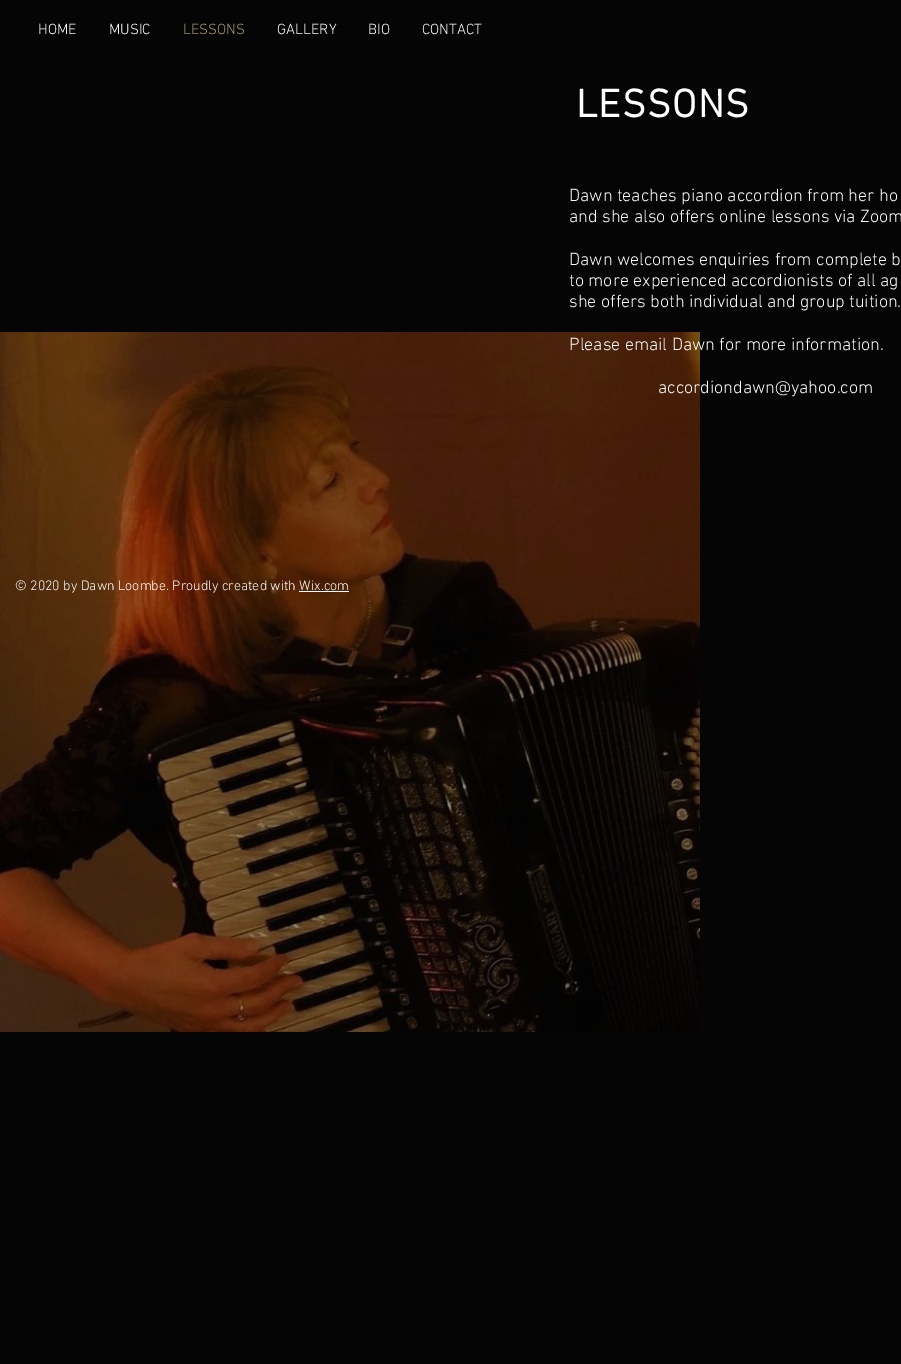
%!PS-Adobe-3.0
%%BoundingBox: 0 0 901 1364
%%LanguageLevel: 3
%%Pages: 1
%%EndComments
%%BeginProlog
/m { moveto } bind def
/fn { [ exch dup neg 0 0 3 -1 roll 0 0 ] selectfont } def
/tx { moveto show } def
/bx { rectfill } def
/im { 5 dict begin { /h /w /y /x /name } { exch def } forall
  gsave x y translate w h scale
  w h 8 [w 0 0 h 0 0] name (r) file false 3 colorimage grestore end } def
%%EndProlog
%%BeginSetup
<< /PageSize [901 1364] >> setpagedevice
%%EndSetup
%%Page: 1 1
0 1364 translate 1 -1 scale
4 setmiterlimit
0.02 setgray
0 0 901 1364 bx
/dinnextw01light-Light 15 fn
1 setgray
(HOME) 38 34 tx
(MUSIC) 109 34 tx
0.639 0.584 0.427 setrgbcolor
(LESSONS) 183 34 tx
1 setgray
(GALLERY) 277 34 tx
(BIO) 368 34 tx
(CONTACT) 422 34 tx
/dinnextw01light-Bold 40 fn
576 117 m 1.25 0 (LESSONS) ashow
/dinnextw01light-Light 18 fn
(Dawn teaches piano accordion from her ho) 569 201 tx
(and she also offers online lessons via Zoom) 569 222 tx
(Dawn welcomes enquiries from complete b) 569 265 tx
(to more experienced accordionists of all ag) 569 286 tx
(she offers both individual and group tuition.) 569 307 tx
(image0.raw) 0 332 700 700 im
(Please email Dawn for more information.) 569 350 tx
(accordiondawn@yahoo.com) 658 393 tx
/dinnextw01light-Light 14 fn
(© 2020 by Dawn Loombe. Proudly created with Wix.com) 15 590 tx
299 591 50 1 bx
showpage
%%EOF
